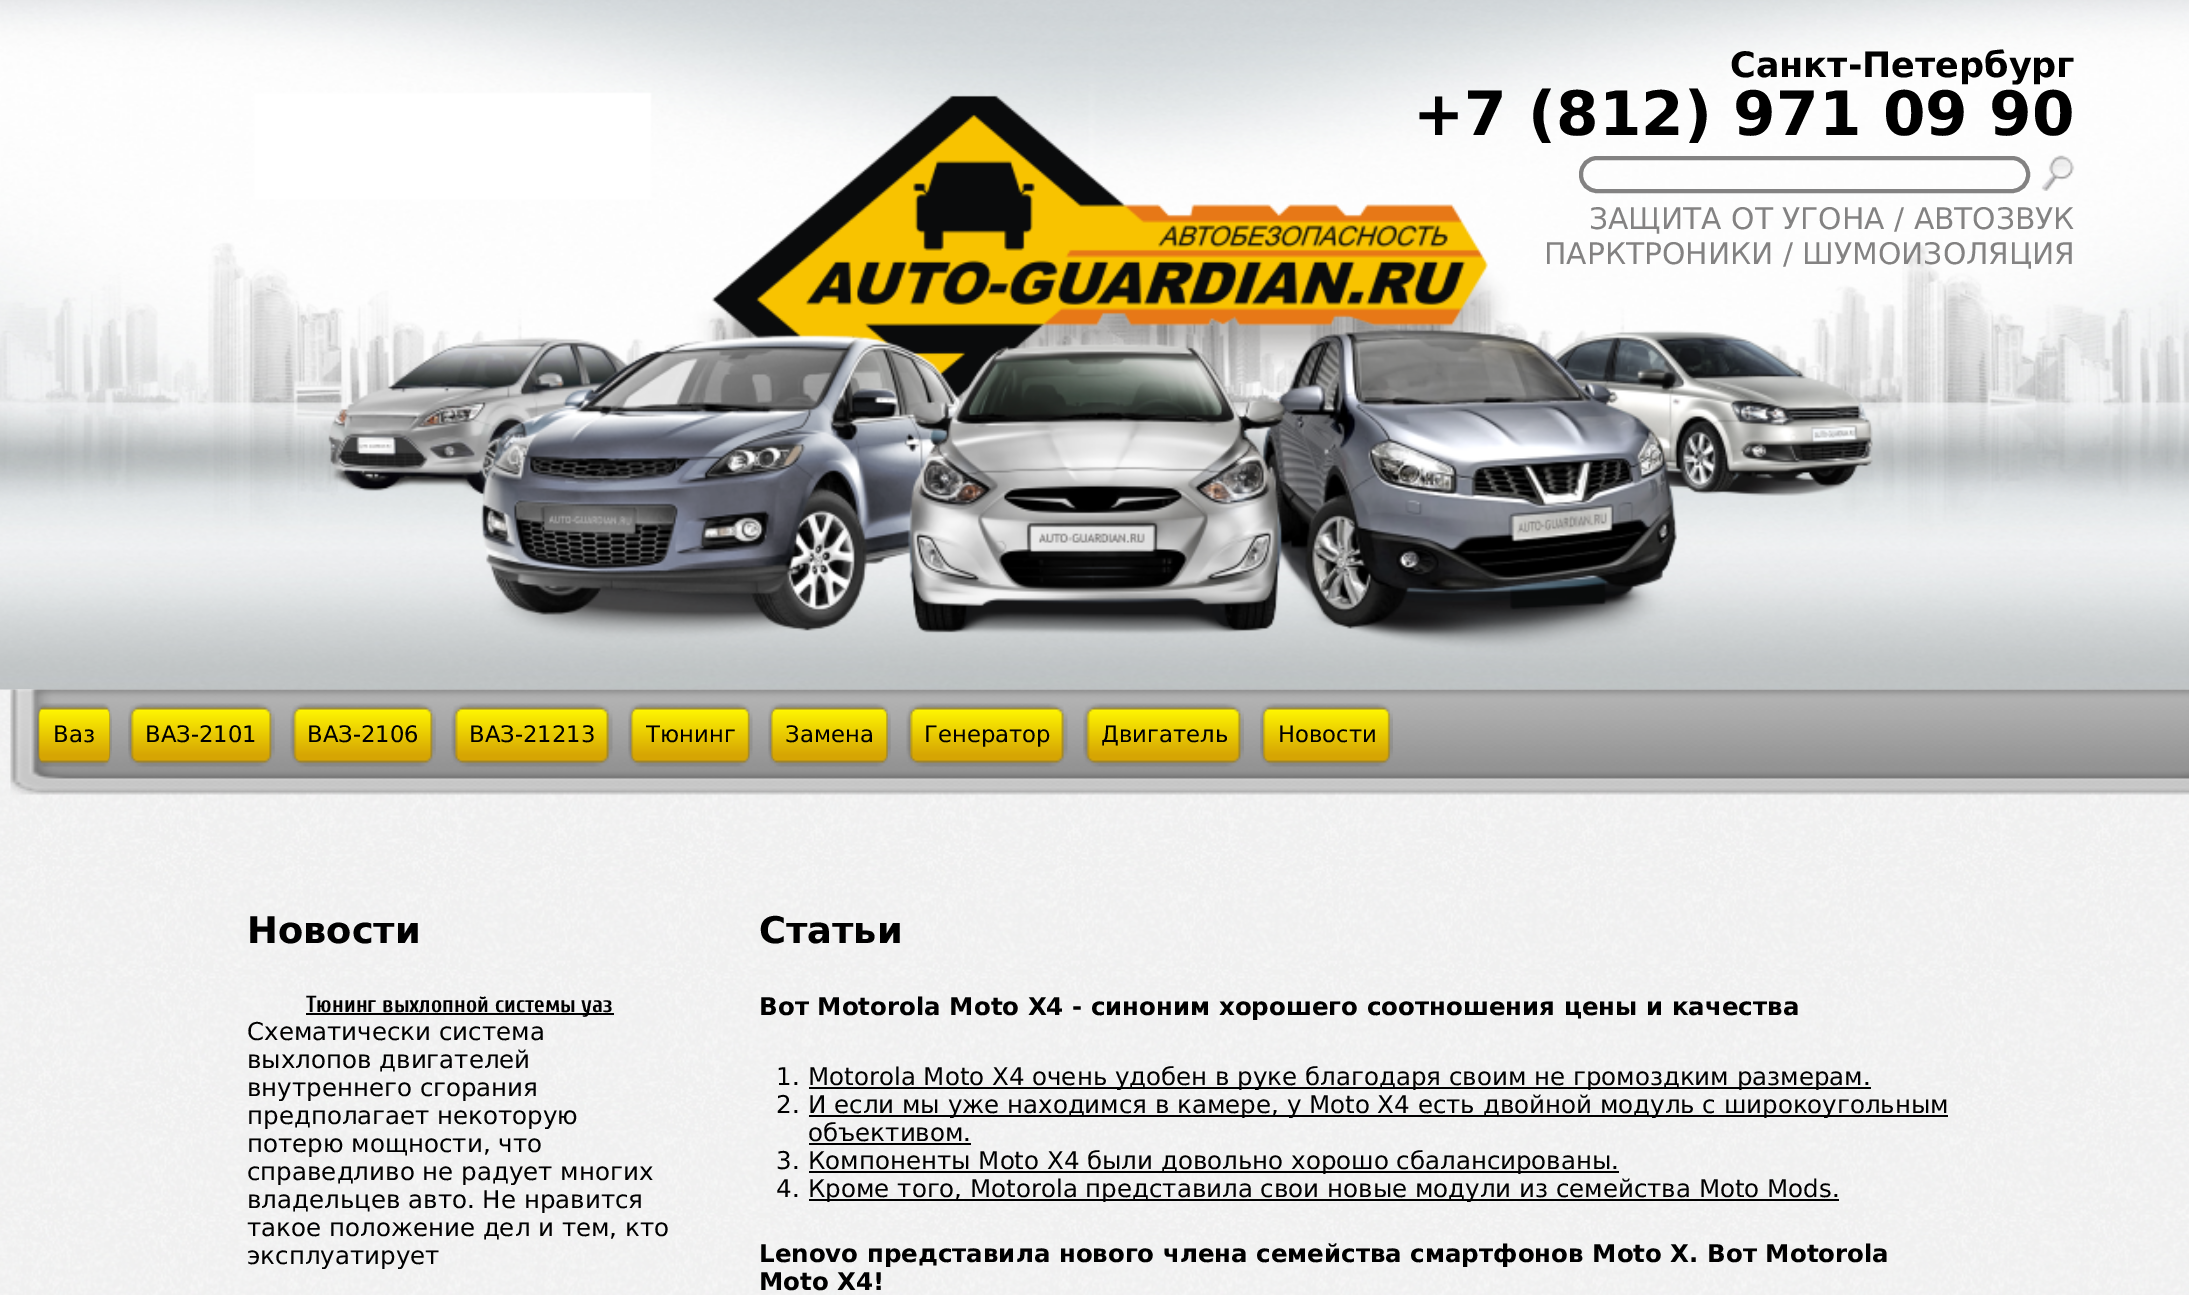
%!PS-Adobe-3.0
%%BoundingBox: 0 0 2189 1295
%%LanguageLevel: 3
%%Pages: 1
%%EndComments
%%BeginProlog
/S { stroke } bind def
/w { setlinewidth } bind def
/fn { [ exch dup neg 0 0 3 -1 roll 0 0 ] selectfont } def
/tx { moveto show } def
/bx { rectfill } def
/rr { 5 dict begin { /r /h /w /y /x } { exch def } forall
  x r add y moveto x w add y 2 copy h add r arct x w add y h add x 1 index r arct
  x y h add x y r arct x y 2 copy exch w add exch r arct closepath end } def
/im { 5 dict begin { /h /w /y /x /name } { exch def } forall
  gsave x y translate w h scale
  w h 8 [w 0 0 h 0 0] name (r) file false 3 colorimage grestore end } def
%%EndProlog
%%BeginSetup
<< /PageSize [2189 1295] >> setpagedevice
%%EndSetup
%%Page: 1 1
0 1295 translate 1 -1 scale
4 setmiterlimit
1 setgray
0 0 2189 1295 bx
(image0.raw) 0 689 2189 606 im
(image1.raw) 0 0 2189 690 im
/DejaVuSans-Bold 35 fn
0 setgray
(Санкт-Петербург) 1730 77 tx
/DejaVuSans-Bold 61.25 fn
(+7 \(812\) 971 09 90) 1413 135 tx
0.514 0.51 0.51 setrgbcolor
4 w
1581 158 447 33 16 rr S
(image2.raw) 2041 155 34 36 im
/DejaVuSans-Regular 29.75 fn
(ЗАЩИТА ОТ УГОНА / АВТОЗВУК) 1589 229 tx
(ПАРКТРОНИКИ / ШУМОИЗОЛЯЦИЯ) 1544 264 tx
(image3.raw) 10 689 2179 106 im
(image4.raw) 37 703 75 64 im
/DejaVuSans-Regular 22.75 fn
0 setgray
(Ваз) 53 742 tx
(image5.raw) 128 703 147 64 im
(ВАЗ-2101) 145 742 tx
(image6.raw) 290 703 146 64 im
(ВАЗ-2106) 307 742 tx
(image7.raw) 451 703 162 64 im
(ВАЗ-21213) 469 742 tx
(image8.raw) 628 703 125 64 im
(Тюнинг) 646 742 tx
(image9.raw) 768 703 123 64 im
(Замена) 785 742 tx
(image10.raw) 906 703 162 64 im
(Генератор) 924 742 tx
(image11.raw) 1083 703 161 64 im
(Двигатель) 1101 742 tx
(image12.raw) 1260 703 133 64 im
(Новости) 1278 742 tx
/DejaVuSans-Bold 36.75 fn
(Новости) 247 943 tx
306 1013 308 2 bx
/Cuprum-Bold 23.25 fn
(Тюнинг выхлопной системы уаз) 306 1012 tx
/DejaVuSans-Regular 24.5 fn
(Схематически система) 247 1040 tx
(выхлопов двигателей) 247 1068 tx
(внутреннего сгорания) 247 1096 tx
(предполагает некоторую) 247 1124 tx
(потерю мощности, что) 247 1152 tx
(справедливо не радует многих) 247 1180 tx
(владельцев авто. Не нравится) 247 1208 tx
(такое положение дел и тем, кто) 247 1236 tx
(эксплуатирует) 247 1264 tx
/DejaVuSans-Bold 36.75 fn
(Статьи) 759 943 tx
/DejaVuSans-Bold 24.5 fn
(Вот Motorola Moto X4 - синоним хорошего соотношения цены и качества) 759 1015 tx
/DejaVuSans-Regular 24.5 fn
(1.) 776 1085 tx
809 1087 1062 2 bx
(Motorola Moto X4 очень удобен в руке благодаря своим не громоздким размерам.) 808 1085 tx
(2.) 776 1113 tx
809 1115 1139 2 bx
(И если мы уже находимся в камере, у Moto X4 есть двойной модуль с широкоугольным) 808 1113 tx
(объективом.) 808 1141 tx
809 1143 162 2 bx
(3.) 776 1169 tx
809 1171 810 2 bx
(Компоненты Moto X4 были довольно хорошо сбалансированы.) 808 1169 tx
(4.) 776 1197 tx
809 1199 1030 2 bx
(Кроме того, Motorola представила свои новые модули из семейства Moto Mods.) 808 1197 tx
/DejaVuSans-Bold 24.5 fn
(Lenovo представила нового члена семейства смартфонов Moto X. Вот Motorola) 759 1262 tx
(Moto X4!) 759 1290 tx
showpage
%%EOF
